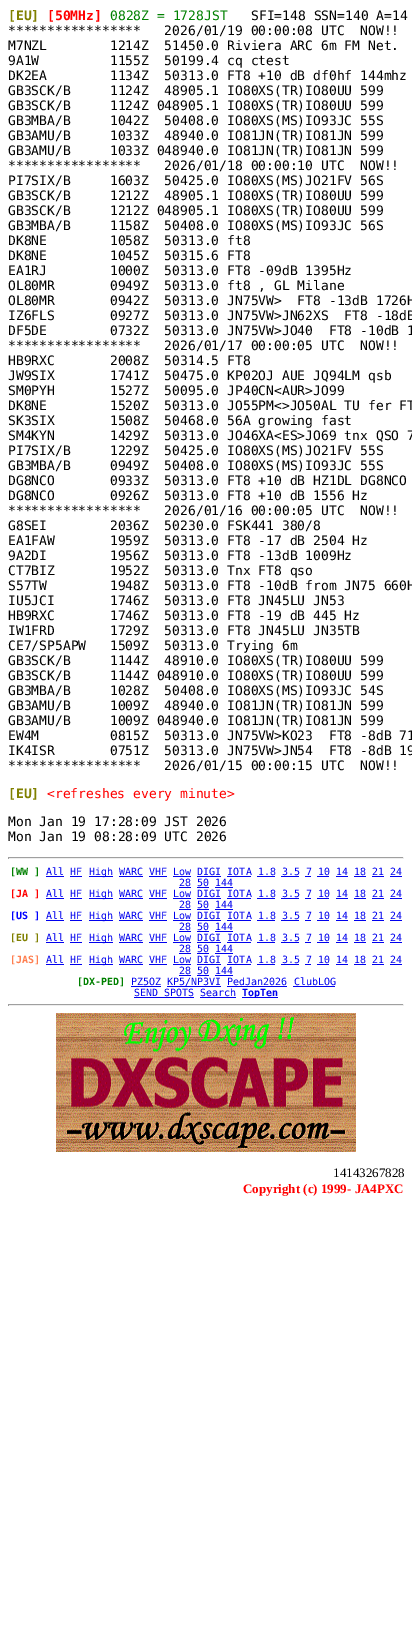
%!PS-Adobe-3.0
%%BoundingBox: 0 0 412 1644
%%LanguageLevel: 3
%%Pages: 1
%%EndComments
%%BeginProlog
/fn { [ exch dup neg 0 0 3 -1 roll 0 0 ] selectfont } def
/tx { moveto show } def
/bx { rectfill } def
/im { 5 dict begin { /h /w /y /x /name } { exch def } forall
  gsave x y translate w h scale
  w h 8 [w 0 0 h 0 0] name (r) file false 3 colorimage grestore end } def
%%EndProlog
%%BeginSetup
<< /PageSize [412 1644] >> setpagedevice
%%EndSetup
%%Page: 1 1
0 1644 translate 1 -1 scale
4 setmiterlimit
1 setgray
0 0 412 1644 bx
/DejaVuSansMono-Bold 13 fn
0.502 0.502 0 setrgbcolor
([EU]) 8 20 tx
1 0 0 setrgbcolor
([50MHz]) 47 20 tx
/DejaVuSansMono-Regular 13 fn
0 0.502 0 setrgbcolor
(0828Z = 1728JST) 110 20 tx
0 setgray
(SFI=148 SSN=140 A=14) 251 20 tx
(*****************   2026/01/19 00:00:08 UTC  NOW!!) 8 35 tx
(M7NZL        1214Z  51450.0 Riviera ARC 6m FM Net.) 8 50 tx
(9A1W         1155Z  50199.4 cq ctest) 8 65 tx
(DK2EA        1134Z  50313.0 FT8 +10 dB df0hf 144mhz) 8 80 tx
(GB3SCK/B     1124Z  48905.1 IO80XS\(TR\)IO80UU 599) 8 95 tx
(GB3SCK/B     1124Z 048905.1 IO80XS\(TR\)IO80UU 599) 8 110 tx
(GB3MBA/B     1042Z  50408.0 IO80XS\(MS\)IO93JC 55S) 8 125 tx
(GB3AMU/B     1033Z  48940.0 IO81JN\(TR\)IO81JN 599) 8 140 tx
(GB3AMU/B     1033Z 048940.0 IO81JN\(TR\)IO81JN 599) 8 155 tx
(*****************   2026/01/18 00:00:10 UTC  NOW!!) 8 170 tx
(PI7SIX/B     1603Z  50425.0 IO80XS\(MS\)JO21FV 56S) 8 185 tx
(GB3SCK/B     1212Z  48905.1 IO80XS\(TR\)IO80UU 599) 8 200 tx
(GB3SCK/B     1212Z 048905.1 IO80XS\(TR\)IO80UU 599) 8 215 tx
(GB3MBA/B     1158Z  50408.0 IO80XS\(MS\)IO93JC 56S) 8 230 tx
(DK8NE        1058Z  50313.0 ft8) 8 245 tx
(DK8NE        1045Z  50315.6 FT8) 8 260 tx
(EA1RJ        1000Z  50313.0 FT8 -09dB 1395Hz) 8 275 tx
(OL80MR       0949Z  50313.0 ft8 , GL Milane) 8 290 tx
(OL80MR       0942Z  50313.0 JN75VW>  FT8 -13dB 1726H) 8 305 tx
(IZ6FLS       0927Z  50313.0 JN75VW>JN62XS  FT8 -18dB) 8 320 tx
(DF5DE        0732Z  50313.0 JN75VW>JO40  FT8 -10dB 1) 8 335 tx
(*****************   2026/01/17 00:00:05 UTC  NOW!!) 8 350 tx
(HB9RXC       2008Z  50314.5 FT8) 8 365 tx
(JW9SIX       1741Z  50475.0 KP02OJ AUE JQ94LM qsb) 8 380 tx
(SM0PYH       1527Z  50095.0 JP40CN<AUR>JO99) 8 395 tx
(DK8NE        1520Z  50313.0 JO55PM<>JO50AL TU fer FT) 8 410 tx
(SK3SIX       1508Z  50468.0 56A growing fast) 8 425 tx
(SM4KYN       1429Z  50313.0 JO46XA<ES>JO69 tnx QSO 7) 8 440 tx
(PI7SIX/B     1229Z  50425.0 IO80XS\(MS\)JO21FV 55S) 8 455 tx
(GB3MBA/B     0949Z  50408.0 IO80XS\(MS\)IO93JC 55S) 8 470 tx
(DG8NCO       0933Z  50313.0 FT8 +10 dB HZ1DL DG8NCO) 8 485 tx
(DG8NCO       0926Z  50313.0 FT8 +10 dB 1556 Hz) 8 500 tx
(*****************   2026/01/16 00:00:05 UTC  NOW!!) 8 515 tx
(G8SEI        2036Z  50230.0 FSK441 380/8) 8 530 tx
(EA1FAW       1959Z  50313.0 FT8 -17 dB 2504 Hz) 8 545 tx
(9A2DI        1956Z  50313.0 FT8 -13dB 1009Hz) 8 560 tx
(CT7BIZ       1952Z  50313.0 Tnx FT8 qso) 8 575 tx
(S57TW        1948Z  50313.0 FT8 -10dB from JN75 660H) 8 590 tx
(IU5JCI       1746Z  50313.0 FT8 JN45LU JN53) 8 605 tx
(HB9RXC       1746Z  50313.0 FT8 -19 dB 445 Hz) 8 620 tx
(IW1FRD       1729Z  50313.0 FT8 JN45LU JN35TB) 8 635 tx
(CE7/SP5APW   1509Z  50313.0 Trying 6m) 8 650 tx
(GB3SCK/B     1144Z  48910.0 IO80XS\(TR\)IO80UU 599) 8 665 tx
(GB3SCK/B     1144Z 048910.0 IO80XS\(TR\)IO80UU 599) 8 680 tx
(GB3MBA/B     1028Z  50408.0 IO80XS\(MS\)IO93JC 54S) 8 695 tx
(GB3AMU/B     1009Z  48940.0 IO81JN\(TR\)IO81JN 599) 8 710 tx
(GB3AMU/B     1009Z 048940.0 IO81JN\(TR\)IO81JN 599) 8 725 tx
(EW4M         0815Z  50313.0 JN75VW>KO23  FT8 -8dB 71) 8 740 tx
(IK4ISR       0751Z  50313.0 JN75VW>JN54  FT8 -8dB 19) 8 755 tx
(*****************   2026/01/15 00:00:15 UTC  NOW!!) 8 770 tx
/DejaVuSansMono-Bold 13 fn
0.502 0.502 0 setrgbcolor
([EU]) 8 798 tx
/DejaVuSansMono-Regular 13 fn
1 0 0 setrgbcolor
(<refreshes every minute>) 47 798 tx
0 setgray
(Mon Jan 19 17:28:09 JST 2026) 8 826 tx
(Mon Jan 19 08:28:09 UTC 2026) 8 841 tx
0.624 setgray
8 857 396 1 bx
0.933 setgray
403 857 1 2 bx
8 858 396 1 bx
0.624 setgray
8 857 1 2 bx
/DejaVuSansMono-Bold 10 fn
0 0.502 0 setrgbcolor
([WW ]) 10 875 tx
/DejaVuSansMono-Regular 10 fn
0 0 0.933 setrgbcolor
(All HF) 46 875 tx
46 876 18 1 bx
70 876 12 1 bx
89 876 24 1 bx
(High WARC VHF Low DIGI IOTA 1.8 3.5 7 10 14 18 21 24) 89 875 tx
119 876 24 1 bx
149 876 18 1 bx
173 876 18 1 bx
197 876 24 1 bx
227 876 24 1 bx
257 876 18 1 bx
281 876 18 1 bx
305 876 6 1 bx
317 876 12 1 bx
336 876 12 1 bx
354 876 12 1 bx
372 876 12 1 bx
390 876 12 1 bx
(28 50 144) 179 886 tx
179 887 12 1 bx
197 887 12 1 bx
215 887 18 1 bx
/DejaVuSansMono-Bold 10 fn
1 0 0 setrgbcolor
([JA ]) 10 897 tx
/DejaVuSansMono-Regular 10 fn
0 0 0.933 setrgbcolor
(All HF) 46 897 tx
46 898 18 1 bx
70 898 12 1 bx
89 898 24 1 bx
(High WARC VHF Low DIGI IOTA 1.8 3.5 7 10 14 18 21 24) 89 897 tx
119 898 24 1 bx
149 898 18 1 bx
173 898 18 1 bx
197 898 24 1 bx
227 898 24 1 bx
257 898 18 1 bx
281 898 18 1 bx
305 898 6 1 bx
317 898 12 1 bx
336 898 12 1 bx
354 898 12 1 bx
372 898 12 1 bx
390 898 12 1 bx
(28 50 144) 179 908 tx
179 909 12 1 bx
197 909 12 1 bx
215 909 18 1 bx
/DejaVuSansMono-Bold 10 fn
0 0 1 setrgbcolor
([US ]) 10 919 tx
/DejaVuSansMono-Regular 10 fn
0 0 0.933 setrgbcolor
(All HF) 46 919 tx
46 920 18 1 bx
70 920 12 1 bx
89 920 24 1 bx
(High WARC VHF Low DIGI IOTA 1.8 3.5 7 10 14 18 21 24) 89 919 tx
119 920 24 1 bx
149 920 18 1 bx
173 920 18 1 bx
197 920 24 1 bx
227 920 24 1 bx
257 920 18 1 bx
281 920 18 1 bx
305 920 6 1 bx
317 920 12 1 bx
336 920 12 1 bx
354 920 12 1 bx
372 920 12 1 bx
390 920 12 1 bx
(28 50 144) 179 930 tx
179 931 12 1 bx
197 931 12 1 bx
215 931 18 1 bx
/DejaVuSansMono-Bold 10 fn
0.502 0.502 0 setrgbcolor
([EU ]) 10 941 tx
/DejaVuSansMono-Regular 10 fn
0 0 0.933 setrgbcolor
(All HF) 46 941 tx
46 942 18 1 bx
70 942 12 1 bx
89 942 24 1 bx
(High WARC VHF Low DIGI IOTA 1.8 3.5 7 10 14 18 21 24) 89 941 tx
119 942 24 1 bx
149 942 18 1 bx
173 942 18 1 bx
197 942 24 1 bx
227 942 24 1 bx
257 942 18 1 bx
281 942 18 1 bx
305 942 6 1 bx
317 942 12 1 bx
336 942 12 1 bx
354 942 12 1 bx
372 942 12 1 bx
390 942 12 1 bx
(28 50 144) 179 952 tx
179 953 12 1 bx
197 953 12 1 bx
215 953 18 1 bx
/DejaVuSansMono-Bold 10 fn
1 0.498 0.314 setrgbcolor
([JAS]) 10 963 tx
/DejaVuSansMono-Regular 10 fn
0 0 0.933 setrgbcolor
(All HF) 46 963 tx
46 964 18 1 bx
70 964 12 1 bx
89 964 24 1 bx
(High WARC VHF Low DIGI IOTA 1.8 3.5 7 10 14 18 21 24) 89 963 tx
119 964 24 1 bx
149 964 18 1 bx
173 964 18 1 bx
197 964 24 1 bx
227 964 24 1 bx
257 964 18 1 bx
281 964 18 1 bx
305 964 6 1 bx
317 964 12 1 bx
336 964 12 1 bx
354 964 12 1 bx
372 964 12 1 bx
390 964 12 1 bx
(28 50 144) 179 974 tx
179 975 12 1 bx
197 975 12 1 bx
215 975 18 1 bx
/DejaVuSansMono-Bold 10 fn
0 0.502 0 setrgbcolor
([DX-PED]) 77 985 tx
/DejaVuSansMono-Regular 10 fn
0 0 0.933 setrgbcolor
(PZ5OZ KP5/NP3VI PedJan2026 ClubLOG) 131 985 tx
131 986 30 1 bx
167 986 54 1 bx
227 986 60 1 bx
293 986 42 1 bx
(SEND SPOTS Search) 134 996 tx
134 997 60 1 bx
200 997 36 1 bx
242 997 36 1 bx
/DejaVuSansMono-Bold 10 fn
(TopTen) 242 996 tx
0.624 setgray
8 1004 396 1 bx
0.933 setgray
403 1004 1 2 bx
8 1005 396 1 bx
0.624 setgray
8 1004 1 2 bx
(image0.raw) 56 1013 300 139 im
/LiberationSerif-Regular 13 fn
0 setgray
(14143267828) 333 1177 tx
/LiberationSerif-Bold 13 fn
1 0 0 setrgbcolor
(Copyright \(c\) 1999- JA4PXC) 243 1193 tx
showpage
%%EOF
